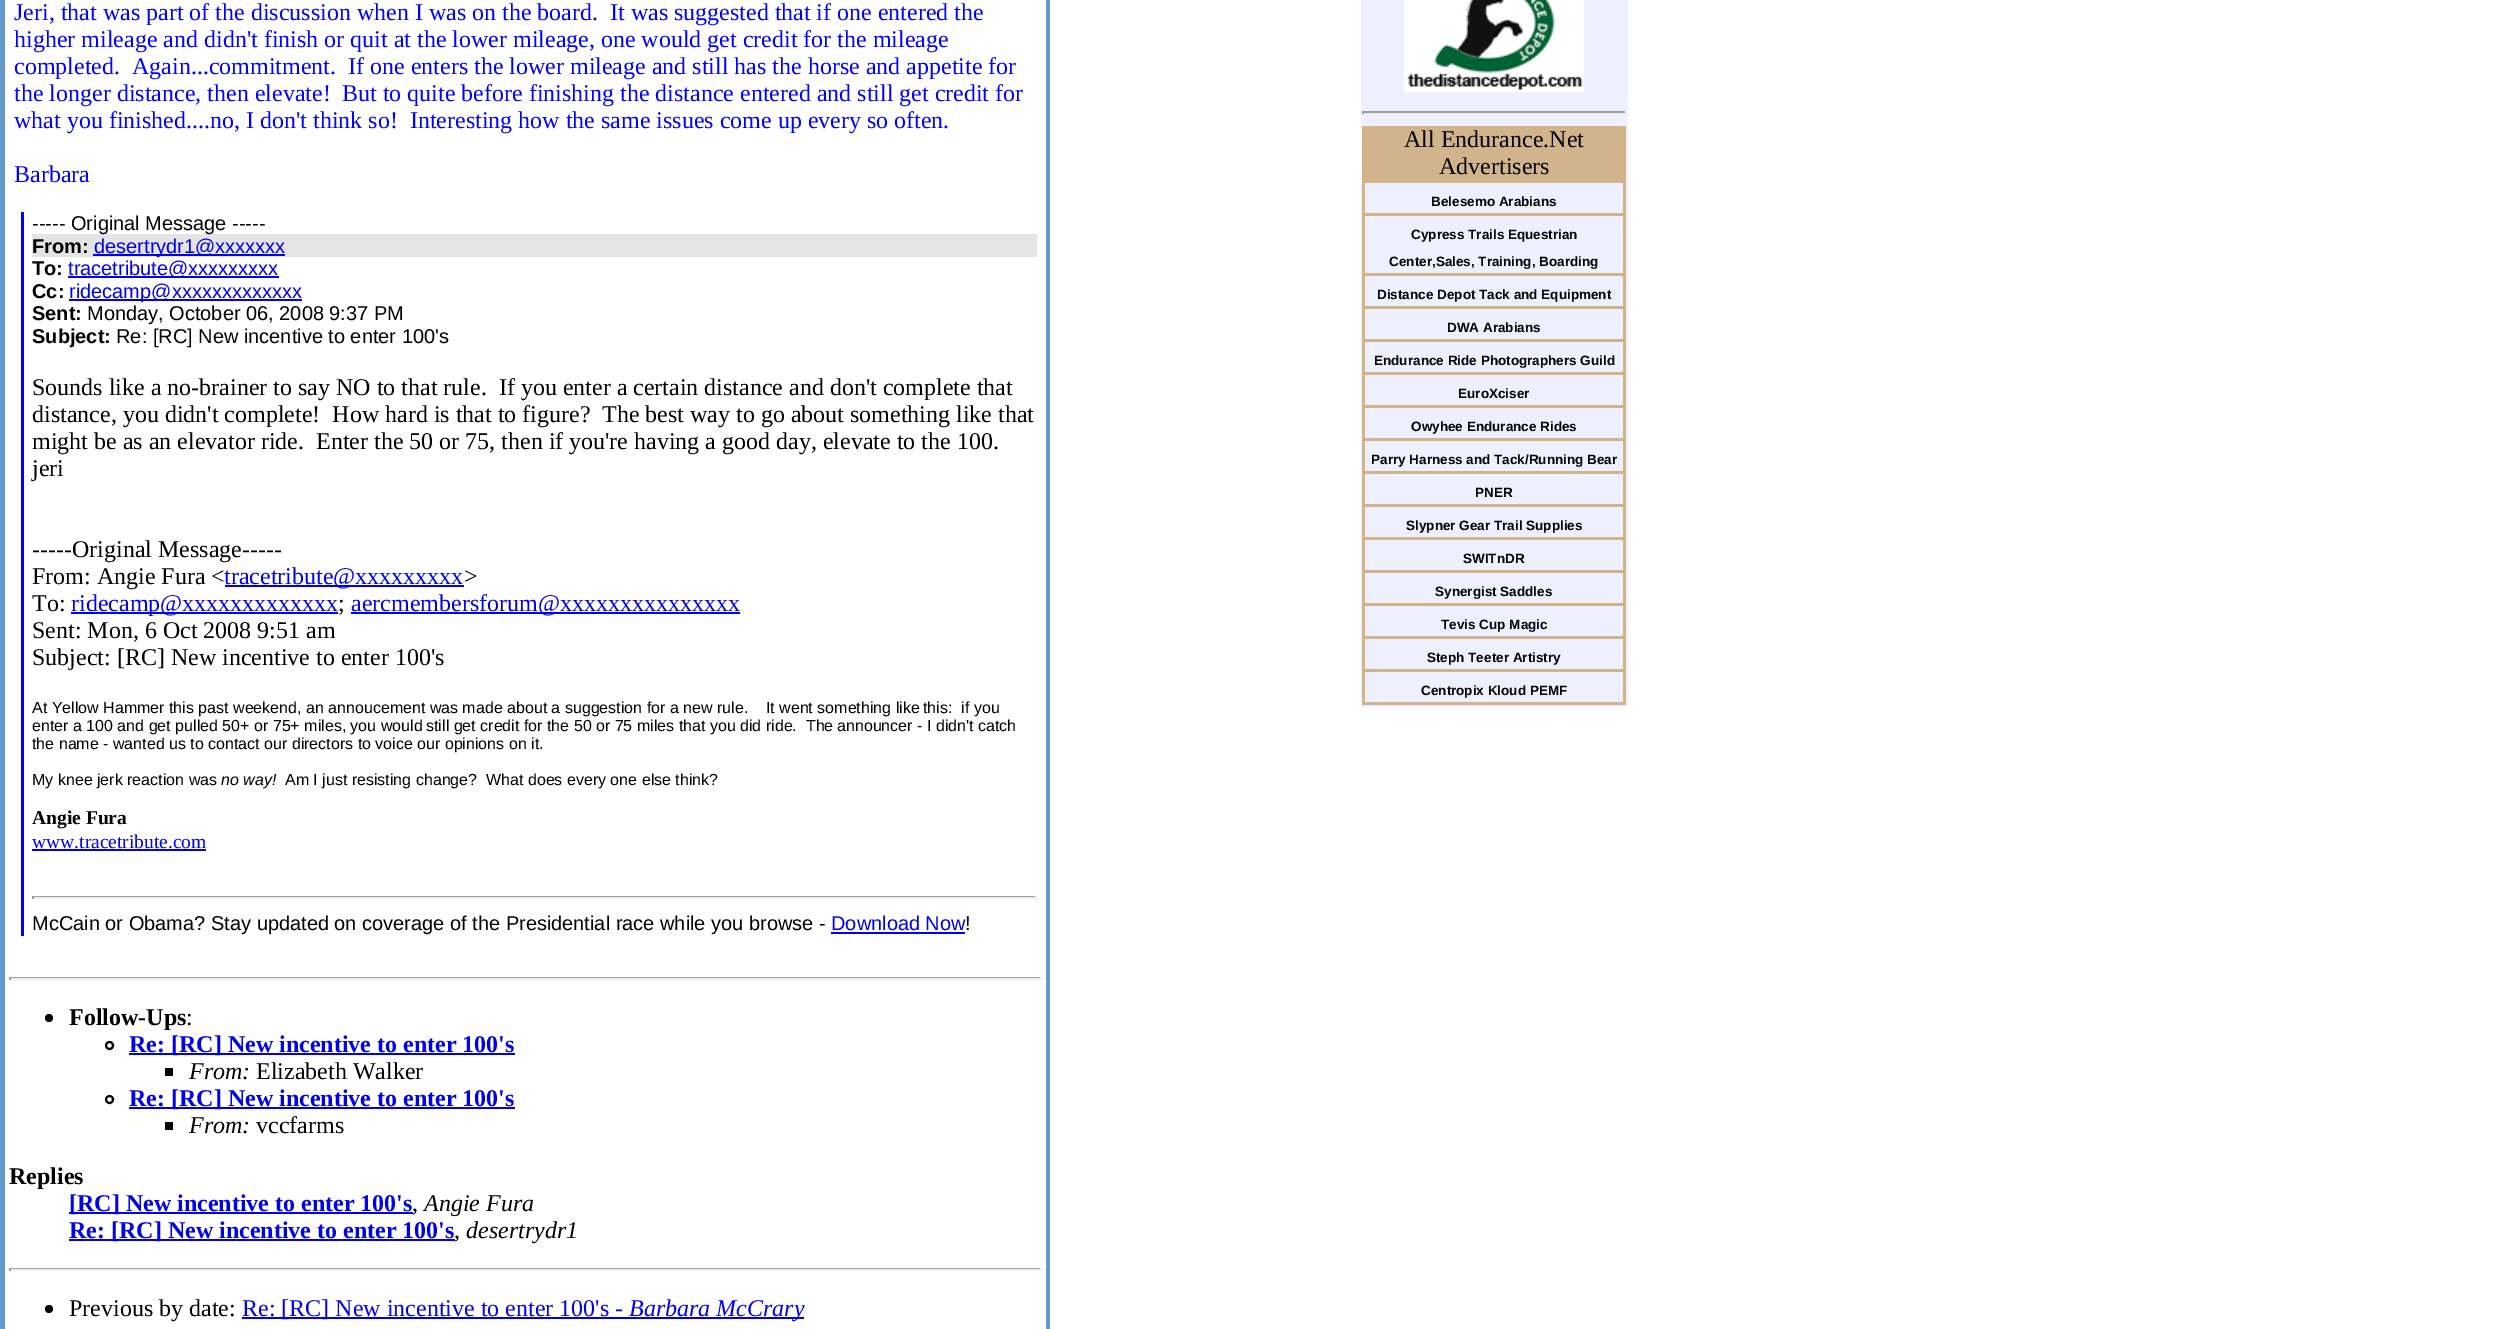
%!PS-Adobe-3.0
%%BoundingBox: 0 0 2509 1329
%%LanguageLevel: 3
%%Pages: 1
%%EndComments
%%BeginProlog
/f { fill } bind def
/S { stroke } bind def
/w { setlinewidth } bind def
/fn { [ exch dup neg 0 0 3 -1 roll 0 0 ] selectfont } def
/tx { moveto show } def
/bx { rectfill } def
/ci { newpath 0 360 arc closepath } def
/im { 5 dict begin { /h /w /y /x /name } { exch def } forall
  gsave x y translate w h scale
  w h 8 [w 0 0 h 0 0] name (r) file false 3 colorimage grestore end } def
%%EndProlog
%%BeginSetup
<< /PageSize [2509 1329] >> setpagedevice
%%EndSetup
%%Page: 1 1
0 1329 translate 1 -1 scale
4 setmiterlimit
1 setgray
0 0 2509 1329 bx
0.4 0.6 0.8 setrgbcolor
0 0 1050 1329 bx
1 setgray
5 0 1041 1329 bx
/LiberationSerif-Regular 24 fn
0 0 1 setrgbcolor
(Jeri, that was part of the discussion when I was on the board.  It was suggested that if one entered the) 14 20 tx
(higher mileage and didn't finish or quit at the lower mileage, one would get credit for the mileage) 14 47 tx
(completed.  Again...commitment.  If one enters the lower mileage and still has the horse and appetite for) 14 74 tx
(the longer distance, then elevate!) 14 101 tx
(But to quite before finishing the distance entered and still get credit for) 342 101 tx
(what you finished....no, I don't think so!  Interesting how the same issues come up every so often.) 14 128 tx
(Barbara) 14 182 tx
21 212 3 724 bx
0.894 setgray
32 234 1005 23 bx
/LiberationSans-Regular 20 fn
0 setgray
(----- Original Message -----) 32 230 tx
/LiberationSans-Bold 20 fn
(From:) 32 253 tx
0 0 0.933 setrgbcolor
93 254 192 2 bx
/LiberationSans-Regular 20 fn
(desertrydr1@xxxxxxx) 94 253 tx
/LiberationSans-Bold 20 fn
0 setgray
(To:) 32 275 tx
0 0 0.933 setrgbcolor
68 276 211 2 bx
/LiberationSans-Regular 20 fn
(tracetribute@xxxxxxxxx) 68 275 tx
/LiberationSans-Bold 20 fn
0 setgray
(Cc:) 32 298 tx
0 0 0.933 setrgbcolor
69 299 233 2 bx
/LiberationSans-Regular 20 fn
(ridecamp@xxxxxxxxxxxxx) 69 298 tx
/LiberationSans-Bold 20 fn
0 setgray
(Sent:) 32 320 tx
/LiberationSans-Regular 20 fn
(Monday, October 06, 2008 9:37 PM) 87 320 tx
/LiberationSans-Bold 20 fn
(Subject:) 32 343 tx
/LiberationSans-Regular 20 fn
(Re: [RC] New incentive to enter 100's) 116 343 tx
/LiberationSerif-Regular 24 fn
(Sounds like a no-brainer to say NO to that rule.  If you enter a certain distance and don't complete that) 32 395 tx
(distance, you didn't complete!  How hard is that to figure?  The best way to go about something like that) 32 422 tx
(might be as an elevator ride.  Enter the 50 or 75, then if you're having a good day, elevate to the 100.) 32 449 tx
(jeri) 32 476 tx
(-----Original Message-----) 32 557 tx
(From: Angie Fura <) 32 584 tx
0 0 0.933 setrgbcolor
225 585 239 2 bx
(tracetribute@xxxxxxxxx) 224 584 tx
0 setgray
(>) 464 584 tx
(To:) 32 611 tx
0 0 0.933 setrgbcolor
71 612 267 2 bx
(ridecamp@xxxxxxxxxxxxx) 71 611 tx
0 setgray
(;) 338 611 tx
0 0 0.933 setrgbcolor
351 612 389 2 bx
(aercmembersforum@xxxxxxxxxxxxxxx) 351 611 tx
0 setgray
(Sent: Mon, 6 Oct 2008 9:51 am) 32 638 tx
(Subject: [RC] New incentive to enter 100's) 32 665 tx
/LiberationSans-Regular 16 fn
(At Yellow Hammer this past weekend, an annoucement was made about a suggestion for a new rule.    It went something like) 32 713 tx
(this:  if you) 923 713 tx
(enter a 100 and get pulled 50+ or 75+ miles, you would) 32 731 tx
(still get credit for the 50 or 75 miles that you did ride.  The) 426 731 tx
(announcer - I didn't catch) 837 731 tx
(the name - wanted us to contact our directors to voice our opinions on it.) 32 749 tx
(My knee jerk reaction was) 32 785 tx
/LiberationSans-Italic 16 fn
(no way!) 221 785 tx
/LiberationSans-Regular 16 fn
(Am I just resisting change?  What does every one else think?) 285 785 tx
/LiberationSerif-Bold 19.5 fn
(Angie Fura) 32 824 tx
/LiberationSerif-Regular 19.5 fn
0 0 0.933 setrgbcolor
(www.tracetribute.com) 32 848 tx
32 849 174 2 bx
0.624 setgray
32 896 1005 1 bx
0.933 setgray
1035 896 2 3 bx
32 897 1005 2 bx
0.624 setgray
32 896 2 3 bx
/LiberationSans-Regular 20 fn
0 setgray
(McCain or Obama? Stay updated on coverage of the Presidential race while you browse -) 32 930 tx
0 0 0.933 setrgbcolor
(Download Now) 831 930 tx
831 932 134 2 bx
0 setgray
(!) 965 930 tx
0.624 setgray
9 977 1032 1 bx
0.933 setgray
1040 977 2 3 bx
9 978 1032 2 bx
0.624 setgray
9 977 2 3 bx
0 setgray
49 1018 4 ci f
/LiberationSerif-Bold 24 fn
(Follow-Ups) 69 1025 tx
/LiberationSerif-Regular 24 fn
(:) 186 1025 tx
2 w
109.5 1045.5 3.5 ci S
0 0 0.933 setrgbcolor
129 1053 386 2 bx
/LiberationSerif-Bold 24 fn
(Re: [RC] New incentive to enter 100's) 129 1052 tx
0 setgray
165 1068 8 8 bx
/LiberationSerif-Italic 24 fn
(From:) 189 1079 tx
/LiberationSerif-Regular 24 fn
(Elizabeth Walker) 256 1079 tx
109.5 1099.5 3.5 ci S
0 0 0.933 setrgbcolor
129 1107 386 2 bx
/LiberationSerif-Bold 24 fn
(Re: [RC] New incentive to enter 100's) 129 1106 tx
0 setgray
165 1122 8 8 bx
/LiberationSerif-Italic 24 fn
(From:) 189 1133 tx
/LiberationSerif-Regular 24 fn
(vccfarms) 256 1133 tx
/LiberationSerif-Bold 24 fn
(Replies) 9 1184 tx
0 0 0.933 setrgbcolor
69 1212 344 2 bx
([RC] New incentive to enter 100's) 69 1211 tx
/LiberationSerif-Regular 24 fn
0 setgray
(,) 412 1211 tx
/LiberationSerif-Italic 24 fn
(Angie Fura) 424 1211 tx
0 0 0.933 setrgbcolor
69 1239 386 2 bx
/LiberationSerif-Bold 24 fn
(Re: [RC] New incentive to enter 100's) 69 1238 tx
/LiberationSerif-Regular 24 fn
0 setgray
(,) 454 1238 tx
/LiberationSerif-Italic 24 fn
(desertrydr1) 466 1238 tx
0.624 setgray
9 1268 1032 1 bx
0.933 setgray
1040 1268 2 3 bx
9 1269 1032 2 bx
0.624 setgray
9 1268 2 3 bx
0 setgray
49 1309 4 ci f
/LiberationSerif-Regular 24 fn
(Previous by date:) 69 1316 tx
0 0 0.933 setrgbcolor
242 1317 562 2 bx
(Re: [RC] New incentive to enter 100's -) 242 1316 tx
/LiberationSerif-Italic 24 fn
(Barbara McCrary) 629 1316 tx
0.933 0.937 1 setrgbcolor
1361 0 267 707 bx
(image0.raw) 1404 0 180 93 im
0.624 setgray
1362 111 264 2 bx
0.933 setgray
1625 111 2 3 bx
1362 113 264 2 bx
0.624 setgray
1362 111 2 3 bx
0.824 0.706 0.549 setrgbcolor
1362 126 264 579 bx
/LiberationSerif-Regular 24 fn
0 setgray
(All Endurance.Net) 1404 147 tx
(Advertisers) 1439 174 tx
0.933 0.937 1 setrgbcolor
1365 183 258 30 bx
/LiberationSans-Bold 13.5 fn
0 setgray
(Belesemo Arabians) 1431 206 tx
0.933 0.937 1 setrgbcolor
1365 216 258 57 bx
0 setgray
(Cypress Trails Equestrian) 1411 239 tx
(Center,Sales, Training, Boarding) 1389 266 tx
0.933 0.937 1 setrgbcolor
1365 276 258 30 bx
0 setgray
(Distance Depot Tack and Equipment) 1377 299 tx
0.933 0.937 1 setrgbcolor
1365 309 258 30 bx
0 setgray
(DWA Arabians) 1447 332 tx
0.933 0.937 1 setrgbcolor
1365 342 258 30 bx
0 setgray
(Endurance Ride Photographers Guild) 1374 365 tx
0.933 0.937 1 setrgbcolor
1365 375 258 30 bx
0 setgray
(EuroXciser) 1458 398 tx
0.933 0.937 1 setrgbcolor
1365 408 258 30 bx
0 setgray
(Owyhee Endurance Rides) 1411 431 tx
0.933 0.937 1 setrgbcolor
1365 441 258 30 bx
0 setgray
(Parry Harness and Tack/Running Bear) 1371 464 tx
0.933 0.937 1 setrgbcolor
1365 474 258 30 bx
0 setgray
(PNER) 1475 497 tx
0.933 0.937 1 setrgbcolor
1365 507 258 30 bx
0 setgray
(Slypner Gear Trail Supplies) 1406 530 tx
0.933 0.937 1 setrgbcolor
1365 540 258 30 bx
0 setgray
(SWITnDR) 1463 563 tx
0.933 0.937 1 setrgbcolor
1365 573 258 30 bx
0 setgray
(Synergist Saddles) 1435 596 tx
0.933 0.937 1 setrgbcolor
1365 606 258 30 bx
0 setgray
(Tevis Cup Magic) 1441 629 tx
0.933 0.937 1 setrgbcolor
1365 639 258 30 bx
0 setgray
(Steph Teeter Artistry) 1427 662 tx
0.933 0.937 1 setrgbcolor
1365 672 258 30 bx
0 setgray
(Centropix Kloud PEMF) 1421 695 tx
showpage
%%EOF
